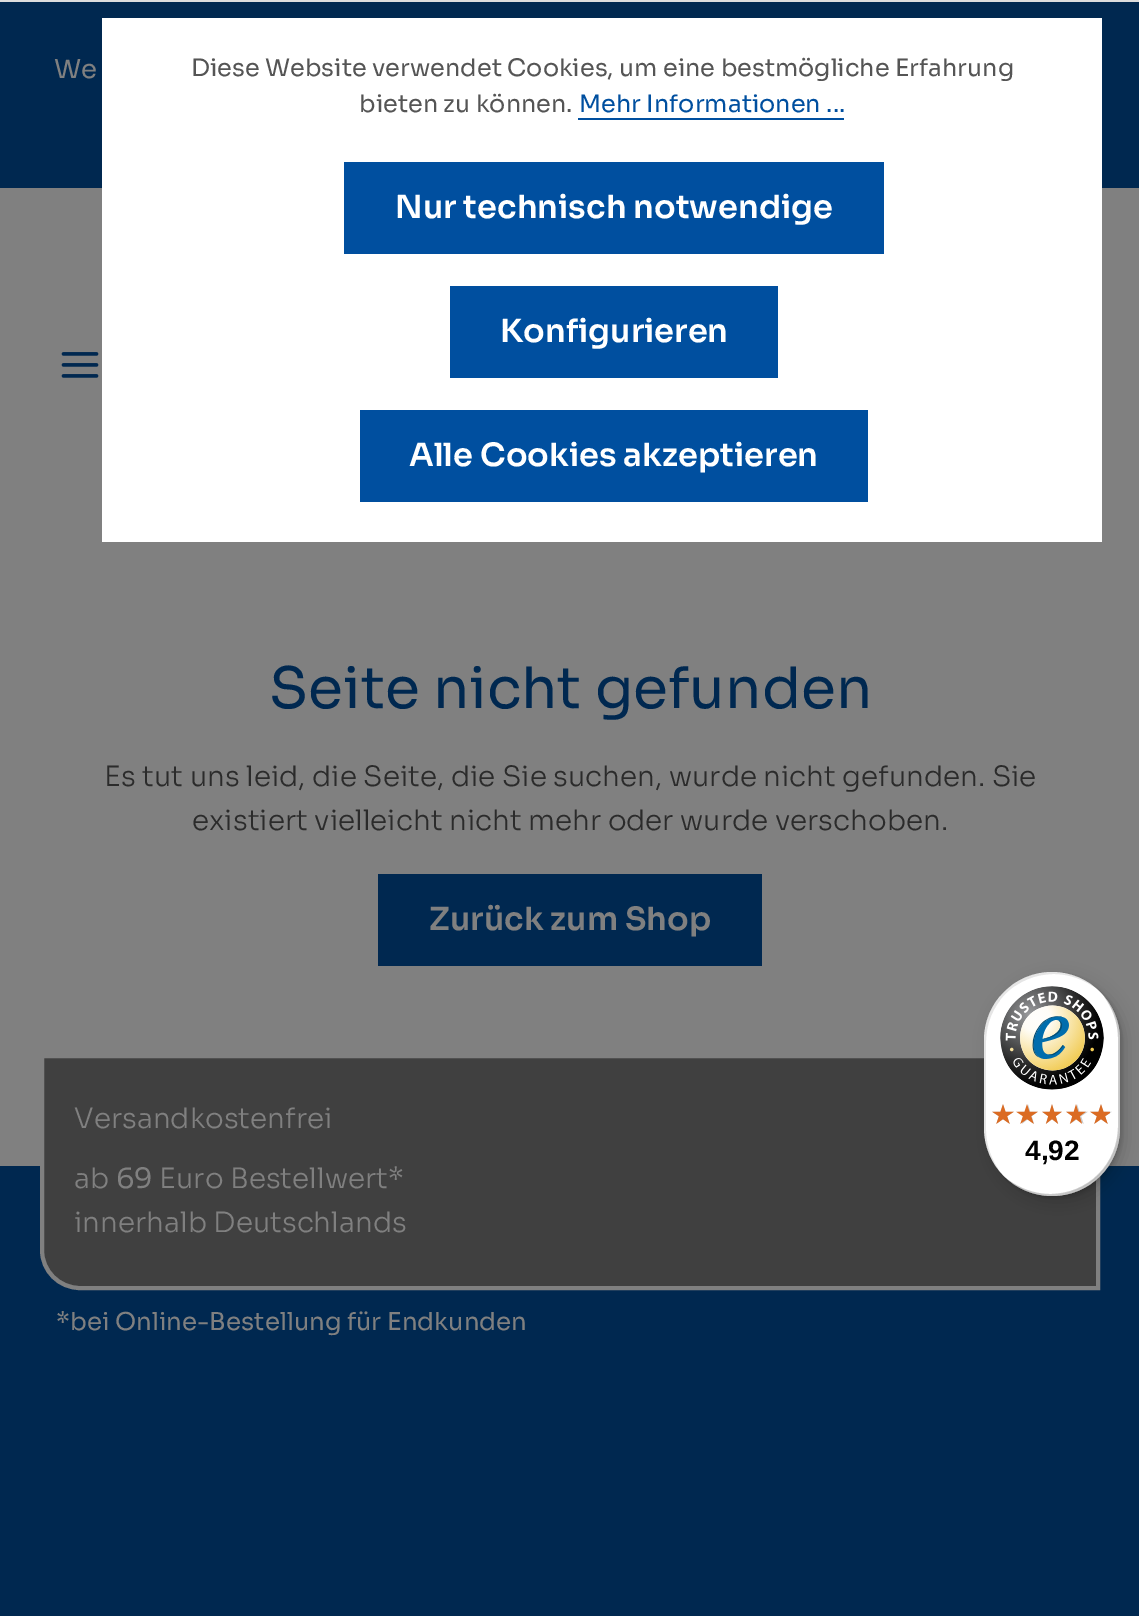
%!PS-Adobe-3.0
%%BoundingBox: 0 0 1139 1616
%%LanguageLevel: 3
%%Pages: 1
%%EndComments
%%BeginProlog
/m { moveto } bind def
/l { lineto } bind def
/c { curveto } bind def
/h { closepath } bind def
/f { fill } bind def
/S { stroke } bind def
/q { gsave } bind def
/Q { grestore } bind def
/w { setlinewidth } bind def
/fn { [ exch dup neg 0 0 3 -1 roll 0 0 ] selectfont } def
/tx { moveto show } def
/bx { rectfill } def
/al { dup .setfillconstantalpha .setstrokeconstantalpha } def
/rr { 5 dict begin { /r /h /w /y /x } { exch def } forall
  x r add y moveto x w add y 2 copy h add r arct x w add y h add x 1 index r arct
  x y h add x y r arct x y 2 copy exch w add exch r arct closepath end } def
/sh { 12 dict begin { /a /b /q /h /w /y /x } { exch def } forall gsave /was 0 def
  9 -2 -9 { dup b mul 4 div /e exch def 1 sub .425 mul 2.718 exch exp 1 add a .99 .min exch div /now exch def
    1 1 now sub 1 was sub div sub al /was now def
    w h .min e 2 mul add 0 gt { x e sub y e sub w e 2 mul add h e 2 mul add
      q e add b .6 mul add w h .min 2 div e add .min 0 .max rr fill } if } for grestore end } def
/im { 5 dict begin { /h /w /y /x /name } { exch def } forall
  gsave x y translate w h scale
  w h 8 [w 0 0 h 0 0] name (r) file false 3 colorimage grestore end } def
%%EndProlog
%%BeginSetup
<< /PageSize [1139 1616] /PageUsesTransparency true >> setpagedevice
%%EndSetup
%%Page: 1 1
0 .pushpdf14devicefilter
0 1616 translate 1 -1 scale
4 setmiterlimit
0.502 setgray
0 0 1139 1616 bx
0.867 setgray
0 0 1139 2 bx
0 0.157 0.314 setrgbcolor
0 2 1139 186 bx
1 setgray
102 18 1000 524 bx
/Sora-Regular 24 fn
0.333 setgray
(Diese Website verwendet Cookies, um eine bestmögliche Erfahrung) 191 76 tx
(bieten zu können.) 359 112 tx
0 0.31 0.624 setrgbcolor
(Mehr Informationen ...) 579 112 tx
578 118 266 2 bx
344 162 540 92 bx
/Sora-SemiBold 32 fn
1 setgray
(Nur technisch notwendige) 395 218 tx
0 0.31 0.624 setrgbcolor
450 286 328 92 bx
1 setgray
(Konfigurieren) 500 342 tx
0 0.31 0.624 setrgbcolor
360 410 508 92 bx
1 setgray
(Alle Cookies akzeptieren) 409 466 tx
/Sora-Regular 26 fn
0.502 setgray
(We) 54 78 tx
(image0.raw) 61 352 38 26 im
/Sora-Regular 56.9 fn
0 0.157 0.314 setrgbcolor
(Seite nicht gefunden) 269 708 tx
/Sora-Light 28 fn
0.169 setgray
(Es tut uns leid, die Seite, die Sie suchen, wurde nicht gefunden. Sie) 104 786 tx
(existiert vielleicht nicht mehr oder wurde verschoben.) 192 830 tx
0 0.157 0.314 setrgbcolor
378 874 384 92 bx
/Sora-SemiBold 32 fn
0.502 setgray
(Zurück zum Shop) 429 930 tx
0 0.157 0.314 setrgbcolor
0 1166 1139 450 bx
0.251 setgray
42 1056 m 1098 1056 l 1098 1288 l 80 1288 l 59 1288 42 1271 42 1250 c h q f Q
0.502 setgray
4 w
S
/Sora-Light 28 fn
(Versandkostenfrei) 74 1128 tx
(ab) 74 1188 tx
/Sora-Regular 28 fn
(69) 116 1188 tx
/Sora-Light 28 fn
(Euro Bestellwert*) 159 1188 tx
(innerhalb Deutschlands) 74 1232 tx
/Sora-Regular 24.5 fn
(*bei Online-Bestellung für Endkunden) 56 1330 tx
0 setgray
990 978 136 224 68 8 0.15 sh
986 974 136 224 68 2 0.15 sh
1 setgray
984 972 136 224 68 rr f
0.1 al
0 setgray
1054 974 m 1070 974 1085 980 1097 989 c 1085 978 1069 972 1052 972 c 1014 972 984 1002 984 1040 c 984 1128 l 984 1145 990 1161 1001 1173 c 992 1161 986 1146 986 1130 c 986 1042 l 986 1004 1016 974 1054 974 c h f
0.2 al
1007 1179 m 1019 1190 1035 1196 1052 1196 c 1090 1196 1120 1166 1120 1128 c 1120 1040 l 1120 1023 1114 1007 1103 995 c 1112 1007 1118 1022 1118 1038 c 1118 1126 l 1118 1164 1088 1194 1050 1194 c 1034 1194 1019 1188 1007 1179 c h f
0.196 setgray
1002 1175 m 1015 1188 1032 1196 1052 1196 c 1090 1196 1120 1166 1120 1128 c 1120 1040 l 1120 1020 1112 1003 1099 990 c 1111 1003 1119 1020 1119 1039 c 1119 1127 l 1119 1164 1088 1195 1051 1195 c 1032 1195 1015 1187 1002 1175 c h f
0.3 al
1 setgray
1011 1182 m 1023 1191 1037 1196 1052 1196 c 1090 1196 1120 1166 1120 1128 c 1120 1040 l 1120 1025 1115 1011 1106 999 c 1114 1010 1119 1024 1119 1039 c 1119 1127 l 1119 1165 1089 1195 1051 1195 c 1036 1195 1022 1190 1011 1182 c h f
1 al
(image1.raw) 1000 986 104 104 im
(image2.raw) 992 1104 22 20 im
(image3.raw) 1018 1104 20 20 im
(image4.raw) 1042 1104 20 20 im
(image5.raw) 1066 1104 22 20 im
(image5.raw) 1090 1104 22 20 im
(image6.raw) 992 1104 22 20 im
(image7.raw) 1016 1104 22 20 im
(image8.raw) 1042 1104 20 20 im
(image9.raw) 1066 1104 20 20 im
(image10.raw) 1090 1104 20 20 im
/LiberationSans-Bold 28 fn
0 setgray
(4,92) 1025 1160 tx
.poppdf14devicefilter showpage
%%EOF
